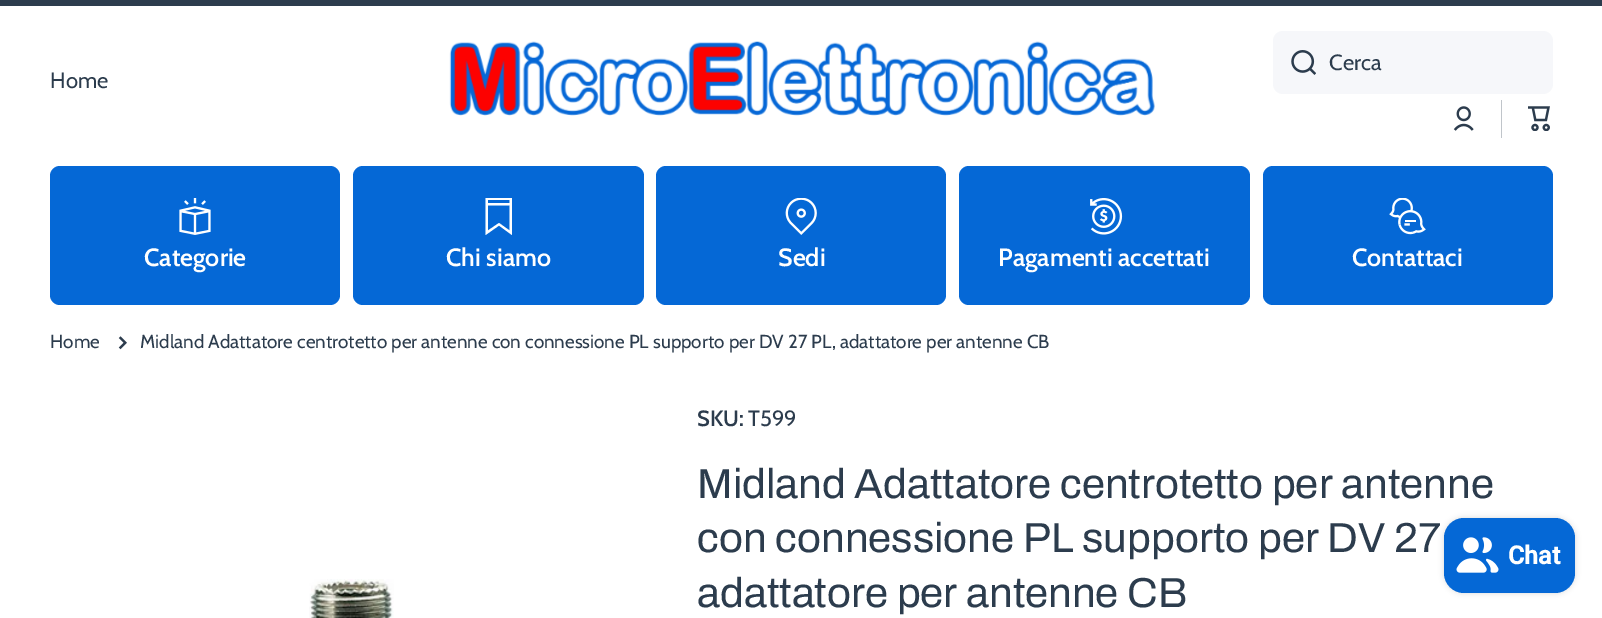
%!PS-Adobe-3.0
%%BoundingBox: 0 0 1602 618
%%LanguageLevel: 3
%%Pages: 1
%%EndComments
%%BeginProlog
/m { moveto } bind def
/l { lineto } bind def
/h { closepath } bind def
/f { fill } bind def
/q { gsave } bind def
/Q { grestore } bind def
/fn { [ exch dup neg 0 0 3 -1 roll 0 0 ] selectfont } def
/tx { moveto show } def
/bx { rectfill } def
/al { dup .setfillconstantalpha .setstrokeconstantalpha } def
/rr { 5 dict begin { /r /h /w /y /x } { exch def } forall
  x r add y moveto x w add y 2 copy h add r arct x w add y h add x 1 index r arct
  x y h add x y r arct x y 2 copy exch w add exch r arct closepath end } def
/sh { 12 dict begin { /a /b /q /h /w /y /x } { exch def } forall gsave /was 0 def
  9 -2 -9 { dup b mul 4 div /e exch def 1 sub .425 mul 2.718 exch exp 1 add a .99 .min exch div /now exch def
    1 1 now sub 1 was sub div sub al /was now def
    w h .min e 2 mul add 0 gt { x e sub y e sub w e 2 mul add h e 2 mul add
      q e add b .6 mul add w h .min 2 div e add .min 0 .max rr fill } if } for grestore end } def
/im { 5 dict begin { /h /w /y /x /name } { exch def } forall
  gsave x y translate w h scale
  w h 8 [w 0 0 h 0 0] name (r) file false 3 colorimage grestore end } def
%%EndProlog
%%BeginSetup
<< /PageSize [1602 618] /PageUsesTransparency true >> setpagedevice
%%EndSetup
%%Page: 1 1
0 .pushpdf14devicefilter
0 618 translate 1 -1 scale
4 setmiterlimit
1 setgray
0 0 1602 618 bx
0.173 0.235 0.302 setrgbcolor
0 0 1602 6 bx
(image0.raw) 449 41 706 75 im
0.965 0.969 0.98 setrgbcolor
1273 31 280 63 10 rr f
(image1.raw) 1291 50 25 25 im
/Cabin-Regular 22 fn
0.173 0.235 0.302 setrgbcolor
(Cerca) 1329 70 tx
(image2.raw) 1453 106 21 25 im
0.753 0.773 0.792 setrgbcolor
1501 100 1 38 bx
(image3.raw) 1528 106 22 25 im
0.173 0.235 0.302 setrgbcolor
(Home) 50 88 tx
0.02 0.408 0.839 setrgbcolor
50 166 290 139 10 rr f
(image4.raw) 179 198 32 37 im
/Cabin-SemiBold 25 fn
1 setgray
(Categorie) 144 266 tx
0.02 0.408 0.839 setrgbcolor
353 166 291 139 10 rr f
q
480 198 38 37 rectclip
1 setgray
485.5 235 m 499 225.5 l 512 235 l 512 197.5 l 485.5 197.5 l h 499 223 m 488 230.5 l 488 205.5 l 509.5 205.5 l 509.5 230.5 l h 509.5 203 m 488 203 l 488 200 l 509.5 200 l h eofill
Q
1 setgray
(Chi siamo) 446 266 tx
0.02 0.408 0.839 setrgbcolor
656 166 290 139 10 rr f
(image5.raw) 785 198 32 37 im
1 setgray
(Sedi) 778 266 tx
0.02 0.408 0.839 setrgbcolor
959 166 291 139 10 rr f
(image6.raw) 1090 198 33 37 im
1 setgray
(Pagamenti accettati) 998 266 tx
0.02 0.408 0.839 setrgbcolor
1263 166 290 139 10 rr f
(image7.raw) 1389 198 37 37 im
1 setgray
(Contattaci) 1352 266 tx
/Cabin-Regular 18.75 fn
0.173 0.235 0.302 setrgbcolor
(Home) 50 348 tx
(image8.raw) 118 336 9 14 im
(Midland Adattatore centrotetto per antenne con connessione PL supporto per DV 27 PL, adattatore per antenne CB) 140 348 tx
(image9.raw) 309 579 85 39 im
/Cabin-SemiBold 22 fn
(SKU:) 697 426 tx
/Cabin-Regular 22 fn
(T599) 748 426 tx
/Archivo-Regular 42 fn
(Midland Adattatore centrotetto per antenne) 697 498 tx
(con connessione PL supporto per DV 27) 697 552 tx
(adattatore per antenne CB) 697 607 tx
0 setgray
1444 518 131 75 20 3 0.15 sh
0.02 0.408 0.839 setrgbcolor
1444 518 131 75 20 rr f
(image10.raw) 1456 537 43 36 im
/Roboto-Bold 25 fn
1 setgray
(Chat) 1508 564 tx
.poppdf14devicefilter showpage
%%EOF
